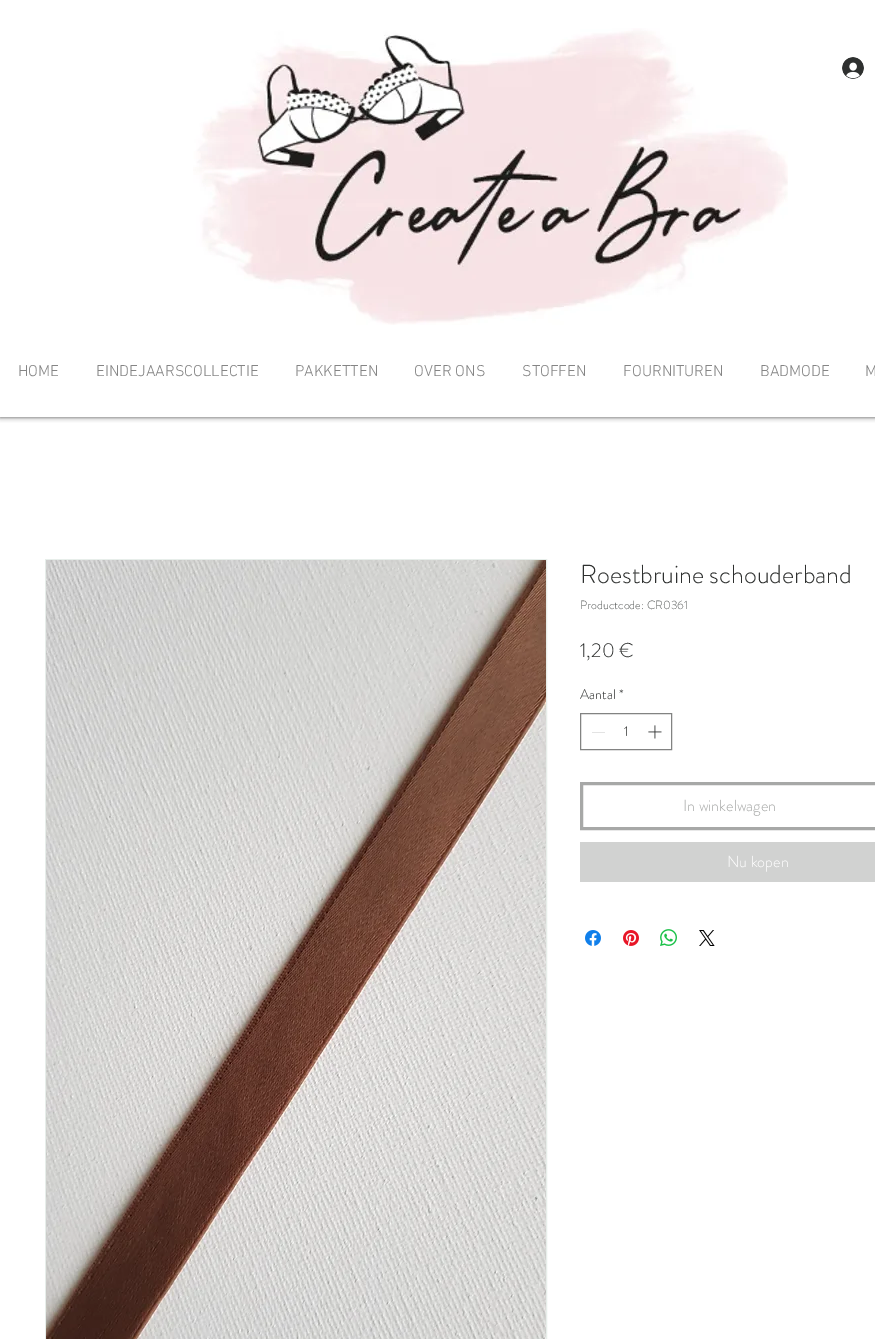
%!PS-Adobe-3.0
%%BoundingBox: 0 0 875 1339
%%LanguageLevel: 3
%%Pages: 1
%%EndComments
%%BeginProlog
/w { setlinewidth } bind def
/fn { [ exch dup neg 0 0 3 -1 roll 0 0 ] selectfont } def
/tx { moveto show } def
/bx { rectfill } def
/al { dup .setfillconstantalpha .setstrokeconstantalpha } def
/rr { 5 dict begin { /r /h /w /y /x } { exch def } forall
  x r add y moveto x w add y 2 copy h add r arct x w add y h add x 1 index r arct
  x y h add x y r arct x y 2 copy exch w add exch r arct closepath end } def
/sh { 12 dict begin { /a /b /q /h /w /y /x } { exch def } forall gsave /was 0 def
  9 -2 -9 { dup b mul 4 div /e exch def 1 sub .425 mul 2.718 exch exp 1 add a .99 .min exch div /now exch def
    1 1 now sub 1 was sub div sub al /was now def
    w h .min e 2 mul add 0 gt { x e sub y e sub w e 2 mul add h e 2 mul add
      q e add b .6 mul add w h .min 2 div e add .min 0 .max rr fill } if } for grestore end } def
/im { 5 dict begin { /h /w /y /x /name } { exch def } forall
  gsave x y translate w h scale
  w h 8 [w 0 0 h 0 0] name (r) file false 3 colorimage grestore end } def
%%EndProlog
%%BeginSetup
<< /PageSize [875 1339] /PageUsesTransparency true >> setpagedevice
%%EndSetup
%%Page: 1 1
0 .pushpdf14devicefilter
0 1339 translate 1 -1 scale
4 setmiterlimit
1 setgray
0 0 875 1339 bx
0 setgray
0 0 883 417 0 2.5 0.7 sh
1 setgray
0 0 875 417 bx
(image0.raw) 193 28 595 297 im
(image1.raw) 842 57 22 22 im
/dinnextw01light-Light 16 fn
0.522 setgray
(HOME) 18 376 tx
(EINDEJAARSCOLLECTIE) 96 376 tx
(PAKKETTEN) 295 376 tx
(OVER ONS) 414 376 tx
(STOFFEN) 522 376 tx
(FOURNITUREN) 623 376 tx
(BADMODE) 760 376 tx
(M) 865 376 tx
0.906 0.933 0.918 setrgbcolor
45.5 559.5 501 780 rectstroke
(image2.raw) 46 560 500 779 im
/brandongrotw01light-Light 26 fn
0.18 0.188 0.184 setrgbcolor
(Roestbruine schouderband) 580 583 tx
/brandongrotw01light-Light 12 fn
0.361 0.373 0.369 setrgbcolor
(Productcode: CR0361) 580 609 tx
/brandongrotw01light-Light 20 fn
0.18 0.188 0.184 setrgbcolor
(1,20 €) 580 657 tx
/brandongrotw01light-Light 14 fn
(Aantal) 580 699 tx
(*) 619 699 tx
0.51 0.514 0.51 setrgbcolor
580.5 713.5 91 36 rectstroke
0.89 setgray
592 732 13 1 bx
0.18 0.188 0.184 setrgbcolor
(1) 624 736 tx
(image3.raw) 648 725 14 14 im
0.655 0.659 0.655 setrgbcolor
3 w
581.5 783.5 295 45 rectstroke
/brandongrotw01light-Light 16 fn
(In winkelwagen) 683 811 tx
0.82 0.824 0.82 setrgbcolor
580 842 295 40 bx
1 setgray
(Nu kopen) 727 867 tx
(image4.raw) 585 930 16 16 im
(image5.raw) 623 930 16 16 im
(image6.raw) 660 929 17 17 im
(image7.raw) 699 930 16 16 im
.poppdf14devicefilter showpage
%%EOF
